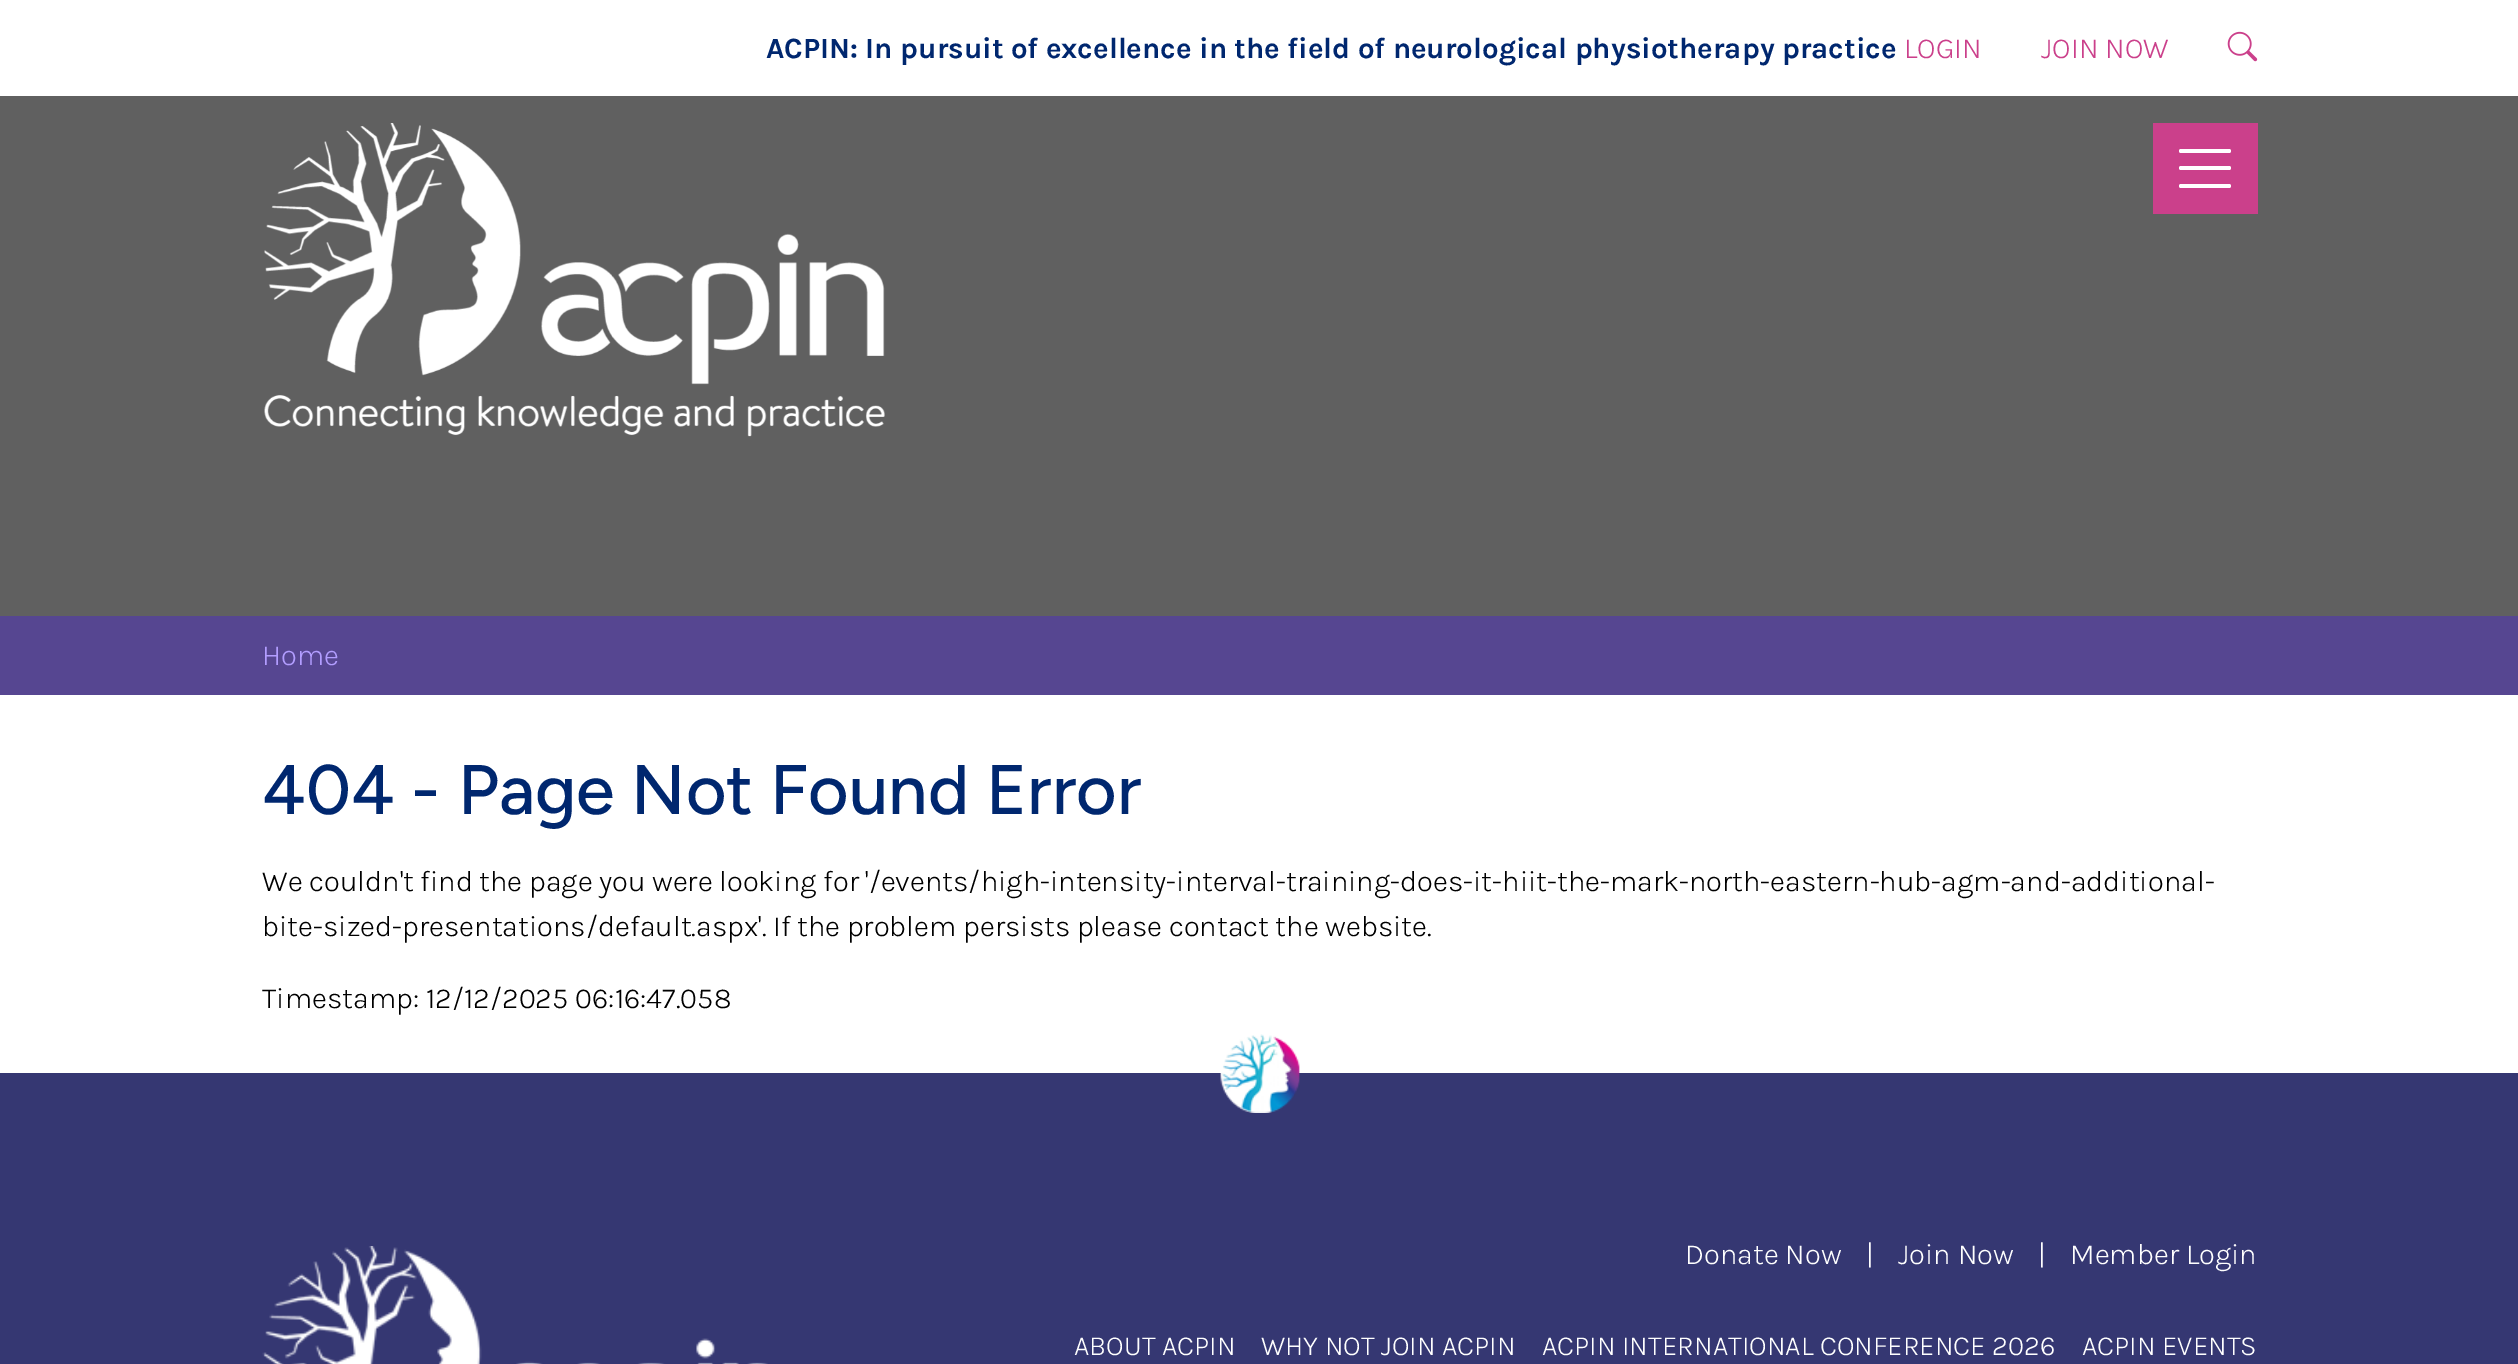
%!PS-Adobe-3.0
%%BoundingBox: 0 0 2518 1364
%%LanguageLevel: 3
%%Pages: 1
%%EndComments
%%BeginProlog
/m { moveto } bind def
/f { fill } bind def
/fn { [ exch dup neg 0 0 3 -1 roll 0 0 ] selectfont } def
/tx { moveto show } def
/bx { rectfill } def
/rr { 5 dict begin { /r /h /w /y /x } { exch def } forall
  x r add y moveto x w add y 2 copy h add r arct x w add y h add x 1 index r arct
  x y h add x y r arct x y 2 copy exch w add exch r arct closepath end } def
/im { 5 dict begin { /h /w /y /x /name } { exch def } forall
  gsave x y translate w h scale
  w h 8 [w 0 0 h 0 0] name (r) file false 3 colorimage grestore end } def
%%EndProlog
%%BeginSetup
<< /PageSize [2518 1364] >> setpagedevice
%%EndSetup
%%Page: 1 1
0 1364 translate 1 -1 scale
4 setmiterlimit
1 setgray
0 0 2518 1364 bx
/Karla-Bold 29.4 fn
0 0.153 0.435 setrgbcolor
(ACPIN: In pursuit of excellence in the field of neurological physiotherapy practice) 766 58 tx
/Karla-Light 29.4 fn
0.796 0.251 0.545 setrgbcolor
(LOGIN) 1904 58 tx
(JOIN NOW) 2041 58 tx
(image0.raw) 2227 31 31 31 im
0.376 setgray
0 96 2518 520 bx
(image1.raw) 264 123 621 314 im
0.796 0.251 0.545 setrgbcolor
2153 123 105 91 bx
1 setgray
2179 149 52 4 2 rr f
2179 166 52 4 2 rr f
2179 184 52 4 2 rr f
0.337 0.275 0.569 setrgbcolor
0 616 2518 79 bx
0.698 0.616 1 setrgbcolor
(Home) 262 665 tx
/Figtree-Medium 70 fn
0 0.153 0.435 setrgbcolor
(404 - Page Not Found Error) 262 814 tx
/Karla-Light 29.4 fn
0 setgray
262 891 m -0.25 0 32 (We couldn't find the page you were looking for '/events/high-intensity-interval-training-does-it-hiit-the-mark-north-eastern-hub-agm-and-additional-) widthshow
262 936 m -0.25 0 32 (bite-sized-presentations/default.aspx'. If the problem persists please contact the website.) widthshow
(Timestamp: 12/12/2025 06:16:47.058) 262 1008 tx
0.208 0.216 0.447 setrgbcolor
0 1073 2518 291 bx
(image2.raw) 1220 1034 80 79 im
(image3.raw) 262 1246 506 118 im
1 setgray
(Donate Now) 1685 1264 tx
(|) 1866 1264 tx
(Join Now) 1898 1264 tx
(|) 2038 1264 tx
(Member Login) 2070 1264 tx
/Karla-Light 28 fn
(ABOUT ACPIN) 1074 1355 tx
(WHY NOT JOIN ACPIN) 1261 1355 tx
(ACPIN INTERNATIONAL CONFERENCE 2026) 1542 1355 tx
(ACPIN EVENTS) 2082 1355 tx
showpage
%%EOF
